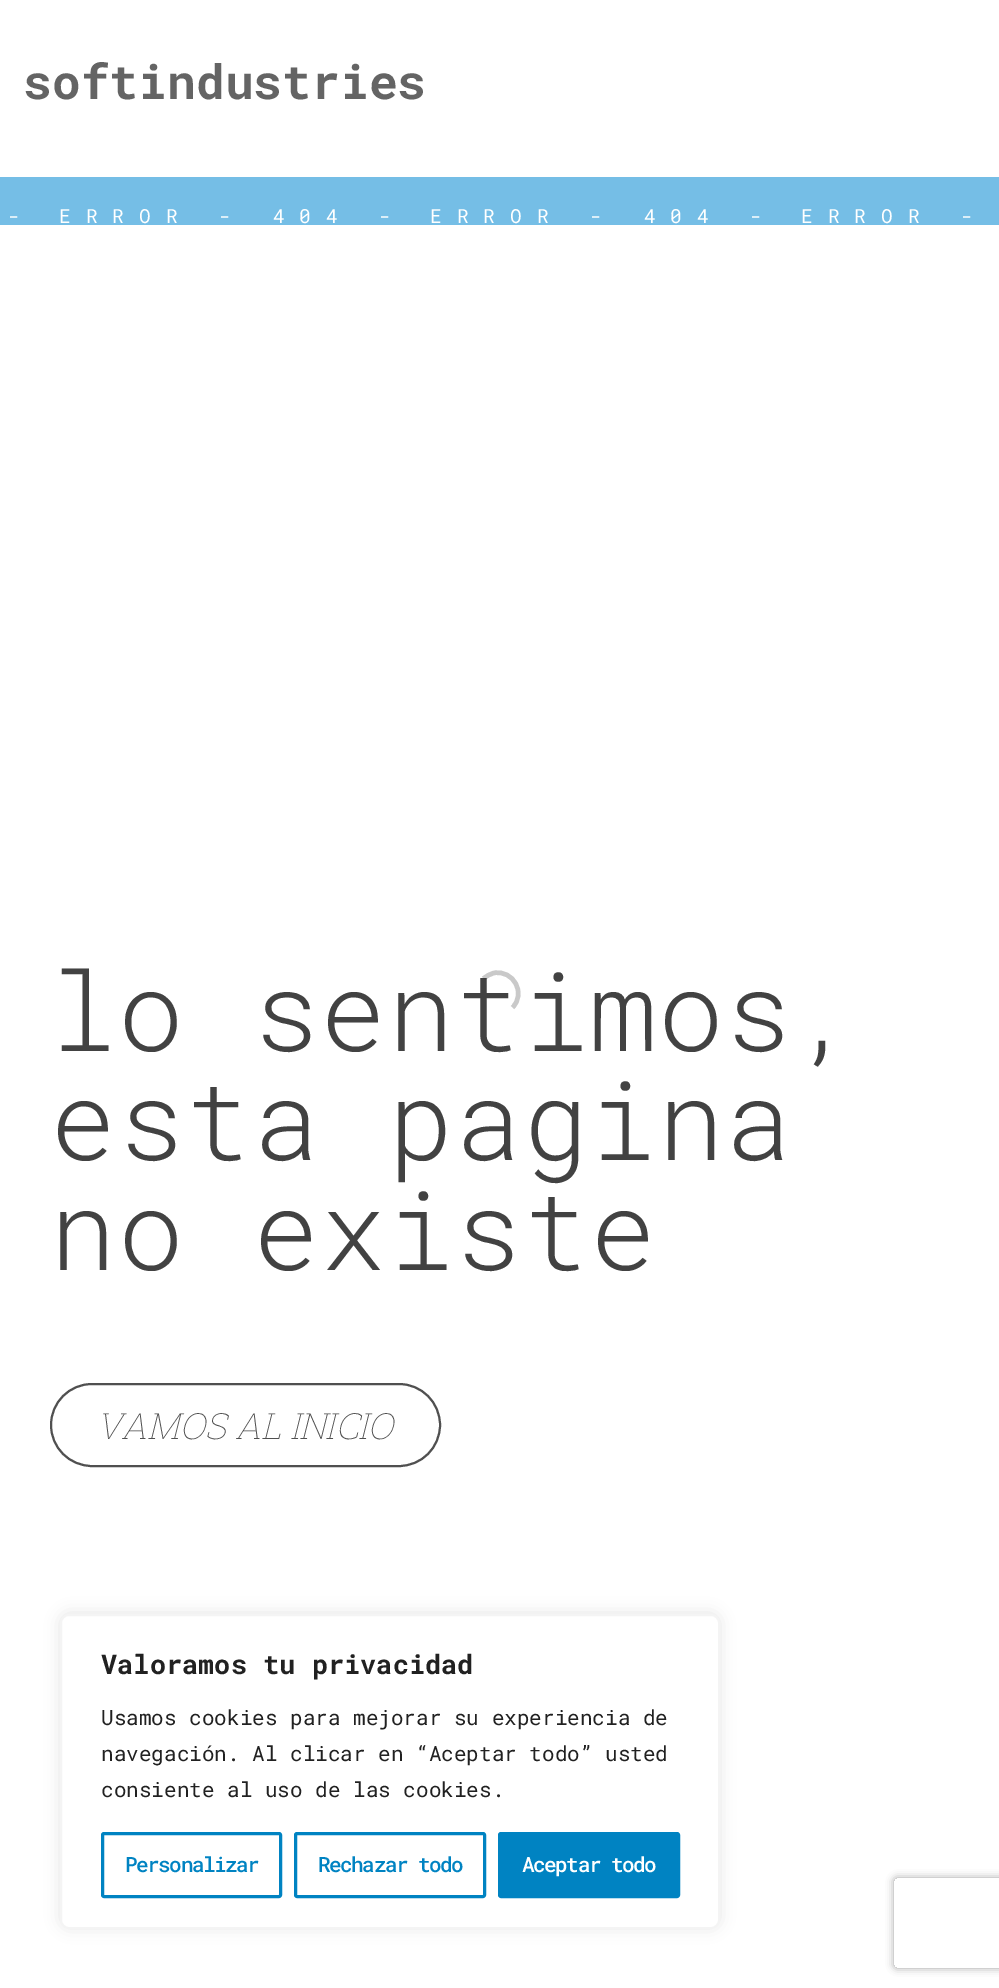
%!PS-Adobe-3.0
%%BoundingBox: 0 0 999 1988
%%LanguageLevel: 3
%%Pages: 1
%%EndComments
%%BeginProlog
/m { moveto } bind def
/l { lineto } bind def
/c { curveto } bind def
/h { closepath } bind def
/f { fill } bind def
/S { stroke } bind def
/q { gsave } bind def
/Q { grestore } bind def
/w { setlinewidth } bind def
/fn { [ exch dup neg 0 0 3 -1 roll 0 0 ] selectfont } def
/tx { moveto show } def
/bx { rectfill } def
/al { dup .setfillconstantalpha .setstrokeconstantalpha } def
/rr { 5 dict begin { /r /h /w /y /x } { exch def } forall
  x r add y moveto x w add y 2 copy h add r arct x w add y h add x 1 index r arct
  x y h add x y r arct x y 2 copy exch w add exch r arct closepath end } def
/sh { 12 dict begin { /a /b /q /h /w /y /x } { exch def } forall gsave /was 0 def
  9 -2 -9 { dup b mul 4 div /e exch def 1 sub .425 mul 2.718 exch exp 1 add a .99 .min exch div /now exch def
    1 1 now sub 1 was sub div sub al /was now def
    w h .min e 2 mul add 0 gt { x e sub y e sub w e 2 mul add h e 2 mul add
      q e add b .6 mul add w h .min 2 div e add .min 0 .max rr fill } if } for grestore end } def
%%EndProlog
%%BeginSetup
<< /PageSize [999 1988] /PageUsesTransparency true >> setpagedevice
%%EndSetup
%%Page: 1 1
0 .pushpdf14devicefilter
0 1988 translate 1 -1 scale
4 setmiterlimit
1 setgray
0 0 999 1988 bx
/RobotoMono-Bold 48 fn
0.392 setgray
(softindustries) 23 99 tx
0.459 0.745 0.902 setrgbcolor
0 177 999 48 bx
/RobotoMono-Regular 19.5 fn
1 setgray
8 223 m 15 0 (-) ashow
59 223 m 15 0 (ERROR - 404 -) ashow
430 223 m 15 0 (ERROR - 404 -) ashow
801 223 m 15 0 (ERROR -) ashow
/RobotoMono-Light 110 fn
0.259 setgray
50 1051 m 1.5 0 (lo sentimos,) ashow
50 1160 m 1.5 0 (esta pagina) ashow
50 1270 m 1.5 0 (no existe) ashow
0.314 setgray
2 w
51 1384 389 82 41 rr S
/RobotoSlab-ThinItalic 36 fn
(VAMOS AL INICIO) 96 1439 tx
0.26 al
0.176 setgray
4.5 w
483.5 978.5 m 486.5 976 490 974 494 973 c 513.5 969.5 526.5 993.5 512.5 1007.5 c S
1 al
0.675 0.671 0.671 setrgbcolor
60 1613 660 315 9 7.5 0.3 sh
1 setgray
61 1615 658 313 8 rr q f Q
0.957 setgray
2 w
S
/RobotoMono-Bold 27 fn
0.129 setgray
(Valoramos tu privacidad) 101 1674 tx
/RobotoMono-Regular 21 fn
(Usamos cookies para mejorar su experiencia de) 101 1725 tx
(navegación. Al clicar en “Aceptar todo” usted) 101 1761 tx
(consiente al uso de las cookies.) 101 1797 tx
0 0.514 0.761 setrgbcolor
3 w
102.5 1833.5 178 63 1.5 rr S
/RobotoMono-Medium 21 fn
125 1872 m -1.5 0 (Personalizar) ashow
295.5 1833.5 189 63 1.5 rr S
318 1872 m -1.5 0 (Rechazar todo) ashow
499.5 1833.5 179 63 1.5 rr q f Q
S
1 setgray
522 1872 m -1.5 0 (Aceptar todo) ashow
q
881 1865 m 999 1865 l 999 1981 l 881 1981 l h 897 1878 m 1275 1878 l 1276.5 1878 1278 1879.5 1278 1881 c 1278 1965 l 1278 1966.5 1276.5 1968 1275 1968 c 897 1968 l 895.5 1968 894 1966.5 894 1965 c 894 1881 l 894 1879.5 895.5 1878 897 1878 c h eoclip newpath
0.631 setgray
894 1878 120 90 3 4 1 sh
Q
.poppdf14devicefilter showpage
%%EOF
